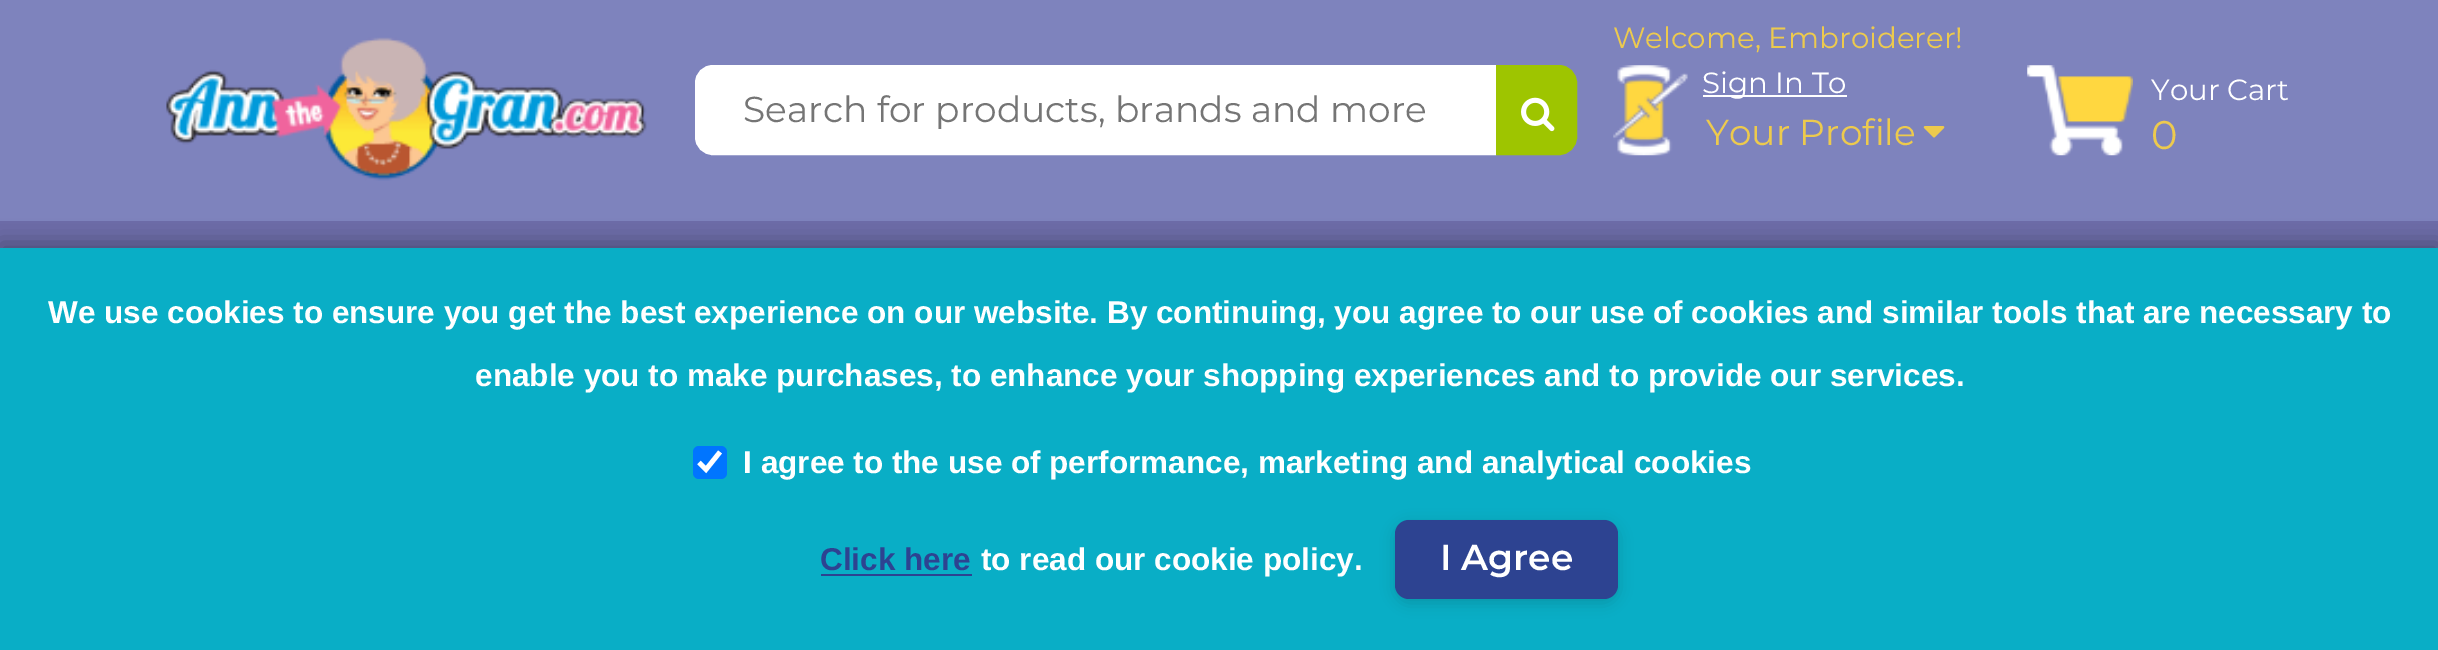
%!PS-Adobe-3.0
%%BoundingBox: 0 0 2438 650
%%LanguageLevel: 3
%%Pages: 1
%%EndComments
%%BeginProlog
/m { moveto } bind def
/l { lineto } bind def
/c { curveto } bind def
/h { closepath } bind def
/f { fill } bind def
/S { stroke } bind def
/q { gsave } bind def
/Q { grestore } bind def
/w { setlinewidth } bind def
/fn { [ exch dup neg 0 0 3 -1 roll 0 0 ] selectfont } def
/tx { moveto show } def
/bx { rectfill } def
/al { dup .setfillconstantalpha .setstrokeconstantalpha } def
/rr { 5 dict begin { /r /h /w /y /x } { exch def } forall
  x r add y moveto x w add y 2 copy h add r arct x w add y h add x 1 index r arct
  x y h add x y r arct x y 2 copy exch w add exch r arct closepath end } def
/sh { 12 dict begin { /a /b /q /h /w /y /x } { exch def } forall gsave /was 0 def
  9 -2 -9 { dup b mul 4 div /e exch def 1 sub .425 mul 2.718 exch exp 1 add a .99 .min exch div /now exch def
    1 1 now sub 1 was sub div sub al /was now def
    w h .min e 2 mul add 0 gt { x e sub y e sub w e 2 mul add h e 2 mul add
      q e add b .6 mul add w h .min 2 div e add .min 0 .max rr fill } if } for grestore end } def
/im { 5 dict begin { /h /w /y /x /name } { exch def } forall
  gsave x y translate w h scale
  w h 8 [w 0 0 h 0 0] name (r) file false 3 colorimage grestore end } def
%%EndProlog
%%BeginSetup
<< /PageSize [2438 650] /PageUsesTransparency true >> setpagedevice
%%EndSetup
%%Page: 1 1
0 .pushpdf14devicefilter
0 650 translate 1 -1 scale
4 setmiterlimit
0.494 0.514 0.741 setrgbcolor
0 0 2438 650 bx
(image0.raw) 166 37 481 144 im
1 setgray
713 66 m 1495 66 l 1495 154 l 713 154 l 703.5 154 696 146.5 696 137 c 696 83 l 696 73.5 703.5 66 713 66 c h q f Q
2 w
S
/Montserrat-Regular 36 fn
0.459 setgray
(Search for products, brands and more) 743 122 tx
0.62 0.773 0 setrgbcolor
1497 66 m 1559 66 l 1568.5 66 1576 73.5 1576 83 c 1576 137 l 1576 146.5 1568.5 154 1559 154 c 1497 154 l h q f Q
S
(image1.raw) 1521 97 34 35 im
/Montserrat-Regular 29.25 fn
0.929 0.792 0.302 setrgbcolor
(Welcome, Embroiderer!) 1613 48 tx
(image2.raw) 1613 65 75 91 im
1 setgray
1703 95 144 2 bx
(Sign In To) 1702 93 tx
/Montserrat-Regular 36 fn
0.929 0.792 0.302 setrgbcolor
(Your Profile) 1706 145 tx
(image3.raw) 1923 126 22 12 im
(image4.raw) 2027 65 106 91 im
/Montserrat-Regular 29.25 fn
1 setgray
(Your Cart) 2151 100 tx
/Montserrat-Regular 40 fn
0.929 0.792 0.302 setrgbcolor
(0) 2151 149 tx
0.427 0.424 0.659 setrgbcolor
0 221 2438 27 bx
0 setgray
0 243 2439 403 0 11 0.3 sh
0.035 0.682 0.776 setrgbcolor
0 248 2438 402 bx
/LiberationSans-Bold 31.5 fn
1 setgray
(We use cookies to ensure you get the best experience on our website. By continuing, you agree to our use of cookies and similar tools that are necessary to) 48 323 tx
(enable you to make purchases, to enhance your shopping experiences and to provide our services.) 475 386 tx
0 0.459 1 setrgbcolor
693 446 34 33 6 rr f
1 setgray
4.7 w
699 462.5 m 706 469.5 l 720 452 l S
(I agree to the use of performance, marketing and analytical cookies) 743 473 tx
0.176 0.263 0.569 setrgbcolor
(Click here) 820 570 tx
821 574 151 2 bx
1 setgray
(to read our cookie policy.) 981 570 tx
0 setgray
1395 524 223 79 14 7 0.15 sh
0.176 0.263 0.569 setrgbcolor
1395 520 223 79 14 rr f
/Montserrat-SemiBold 36 fn
1 setgray
(I Agree) 1440 570 tx
.poppdf14devicefilter showpage
%%EOF
